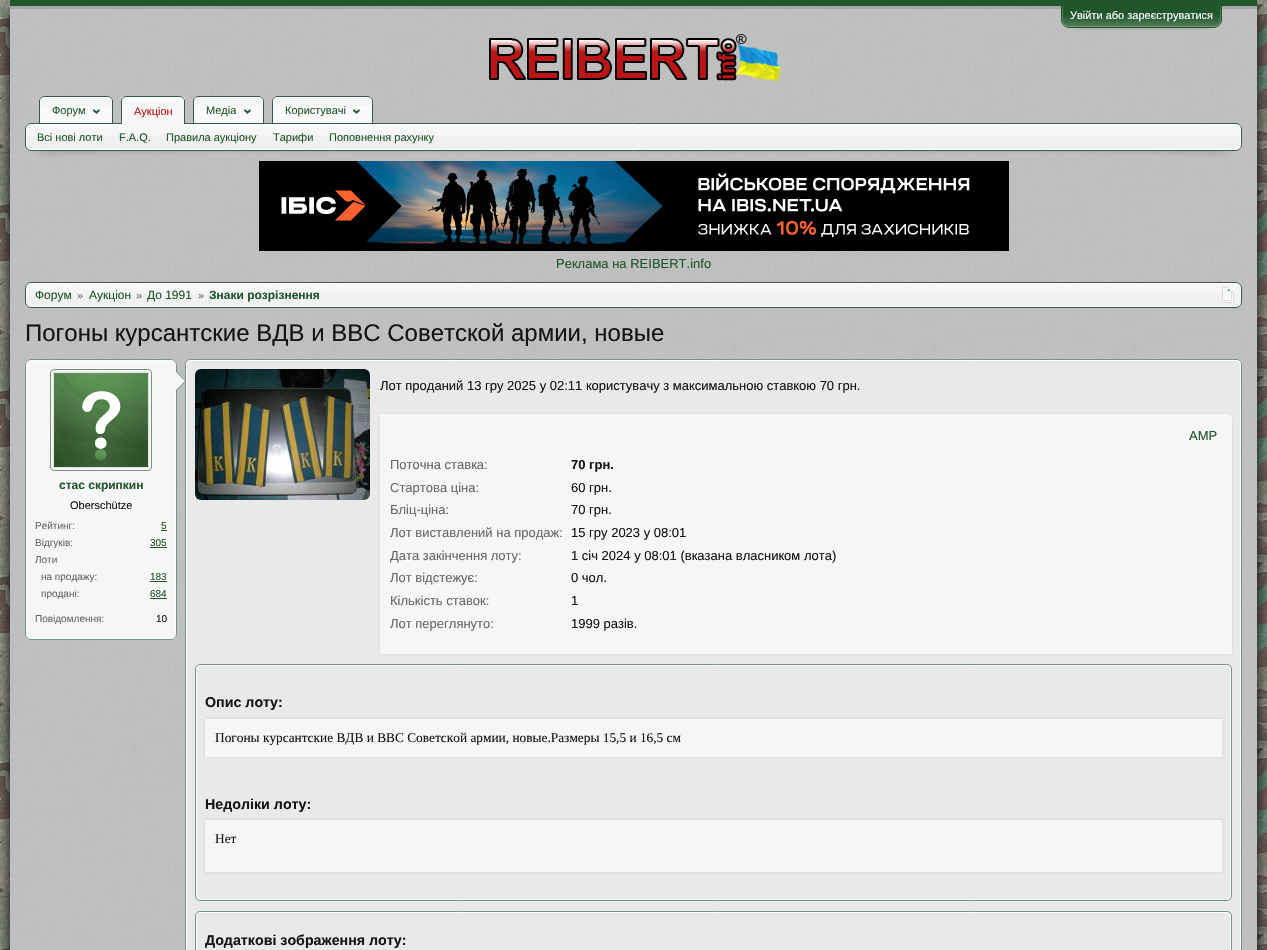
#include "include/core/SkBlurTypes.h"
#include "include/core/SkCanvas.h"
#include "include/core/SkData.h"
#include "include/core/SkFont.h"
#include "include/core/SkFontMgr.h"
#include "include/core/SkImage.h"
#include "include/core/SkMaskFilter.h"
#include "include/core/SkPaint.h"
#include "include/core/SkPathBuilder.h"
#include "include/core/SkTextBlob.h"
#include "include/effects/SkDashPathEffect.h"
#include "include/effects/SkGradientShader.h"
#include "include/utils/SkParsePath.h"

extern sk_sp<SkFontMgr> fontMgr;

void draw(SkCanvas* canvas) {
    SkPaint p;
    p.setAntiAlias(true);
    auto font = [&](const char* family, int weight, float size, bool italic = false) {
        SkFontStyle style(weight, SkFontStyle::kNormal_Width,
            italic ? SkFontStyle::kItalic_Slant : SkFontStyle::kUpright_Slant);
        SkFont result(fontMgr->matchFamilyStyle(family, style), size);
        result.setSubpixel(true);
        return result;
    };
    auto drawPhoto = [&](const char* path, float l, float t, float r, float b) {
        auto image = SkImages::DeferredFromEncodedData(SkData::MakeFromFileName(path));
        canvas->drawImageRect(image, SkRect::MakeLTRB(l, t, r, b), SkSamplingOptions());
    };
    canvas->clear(0xFFFFFFFF);
    drawPhoto("media/1.png", 0, 0, 1267, 950);
    p.setColor(0xFF000000);
    p.setMaskFilter(SkMaskFilter::MakeBlur(kNormal_SkBlurStyle, 7.5f));
    canvas->drawRect(SkRect::MakeLTRB(10, 11, 1257, 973), p);
    p.setMaskFilter(nullptr);
    p.setColor(0xFF21562B);
    canvas->drawRect(SkRect::MakeLTRB(10, 0, 1257, 6), p);
    p.setColor(0xFFC0C0C0);
    canvas->drawRect(SkRect::MakeLTRB(10, 6, 1257, 950), p);
    drawPhoto("media/3.png", 10, 6, 1256, 949);
    p.setColor(0x80000000);
    p.setMaskFilter(SkMaskFilter::MakeBlur(kNormal_SkBlurStyle, 2.5f));
    canvas->drawRoundRect(SkRect::MakeLTRB(1075, 22, 1208, 26), 4, 4, p);
    p.setMaskFilter(nullptr);
    p.setColor(0x21000000);
    canvas->drawRect(SkRect::MakeLTRB(10, 6, 1257, 9), p);
    p.setColor(0xFF21562B);
    canvas->drawPath(SkPathBuilder().moveTo(1062, 6).lineTo(1221, 6).lineTo(1221, 20).cubicTo(1221, 24, 1218, 27, 1214, 27).lineTo(1069, 27).cubicTo(1065, 27, 1062, 24, 1062, 20).close().detach(), p);
    drawPhoto("media/2.png", 1061, 15, 1222, 28);
    canvas->save();
    canvas->clipRect(SkRect::MakeLTRB(1061, 6, 1222, 30));
    p.setStyle(SkPaint::kStroke_Style);
    p.setStrokeWidth(1);
    p.setColor(0x33FFFFFF);
    canvas->drawPath(SkPathBuilder().moveTo(1062.5f, 2.5f).lineTo(1220.5f, 2.5f).lineTo(1220.5f, 20).cubicTo(1220.5f, 23.5f, 1217.5f, 26.5f, 1214, 26.5f).lineTo(1069, 26.5f).cubicTo(1065.5f, 26.5f, 1062.5f, 23.5f, 1062.5f, 20).close().detach(), p);
    p.setStyle(SkPaint::kFill_Style);
    p.setColor(0xFF21562B);
    canvas->drawPath(SkPathBuilder(SkPathFillType::kEvenOdd).moveTo(1061, 2).lineTo(1222, 2).lineTo(1222, 20).cubicTo(1222, 24, 1218, 28, 1214, 28).lineTo(1069, 28).cubicTo(1065, 28, 1061, 24, 1061, 20).close().moveTo(1062, 2).lineTo(1221, 2).lineTo(1221, 20).cubicTo(1221, 24, 1218, 27, 1214, 27).lineTo(1069, 27).cubicTo(1065, 27, 1062, 24, 1062, 20).close().detach(), p);
    canvas->restore();
    auto font1 = font("Liberation Sans", 400, 11);
    p.setColor(0xFFFFFFFF);
    canvas->drawString("Увійти або зареєструватися", 1070, 19, font1, p);
    drawPhoto("media/4.png", 489, 34, 781, 82);
    p.setColor(0xFFFAFAFA);
    canvas->drawPath(SkPathBuilder().moveTo(44, 96).lineTo(108, 96).cubicTo(111, 96, 113, 98, 113, 101).lineTo(113, 125).lineTo(39, 125).lineTo(39, 101).cubicTo(39, 98, 41, 96, 44, 96).close().detach(), p);
    drawPhoto("media/5.png", 39, 97, 113, 106);
    p.setStyle(SkPaint::kStroke_Style);
    canvas->drawPath(SkPathBuilder().moveTo(44, 97.5f).lineTo(108, 97.5f).cubicTo(110, 97.5f, 111.5f, 99, 111.5f, 101).lineTo(111.5f, 123.5f).lineTo(40.5f, 123.5f).lineTo(40.5f, 101).cubicTo(40.5f, 99, 42, 97.5f, 44, 97.5f).close().detach(), p);
    p.setColor(0xFF3F5947);
    canvas->drawPath(SkPathBuilder().moveTo(44, 96.5f).lineTo(108, 96.5f).cubicTo(110.5f, 96.5f, 112.5f, 98.5f, 112.5f, 101).lineTo(112.5f, 124.5f).lineTo(39.5f, 124.5f).lineTo(39.5f, 101).cubicTo(39.5f, 98.5f, 41.5f, 96.5f, 44, 96.5f).close().detach(), p);
    p.setStyle(SkPaint::kFill_Style);
    p.setColor(0xFF21562B);
    canvas->drawString("Форум", 52, 114, font1, p);
    drawPhoto("media/6.png", 93, 109, 100, 114);
    p.setColor(0xFFF7F7F7);
    canvas->drawPath(SkPathBuilder().moveTo(126, 96).lineTo(180, 96).cubicTo(183, 96, 185, 98, 185, 101).lineTo(185, 126).lineTo(121, 126).lineTo(121, 101).cubicTo(121, 98, 123, 96, 126, 96).close().detach(), p);
    p.setColor(0x7AFFFFFF);
    canvas->drawRect(SkRect::MakeLTRB(121, 97, 185, 101), p);
    p.setStyle(SkPaint::kStroke_Style);
    p.setColor(0xFFFAFAFA);
    canvas->drawPath(SkPathBuilder().moveTo(126, 97.5f).lineTo(180, 97.5f).cubicTo(182, 97.5f, 183.5f, 99, 183.5f, 101).lineTo(183.5f, 124.5f).lineTo(122.5f, 124.5f).lineTo(122.5f, 101).cubicTo(122.5f, 99, 124, 97.5f, 126, 97.5f).close().detach(), p);
    p.setColor(0xFF3F5947);
    canvas->drawPath(SkPathBuilder().moveTo(126, 96.5f).lineTo(180, 96.5f).cubicTo(182.5f, 96.5f, 184.5f, 98.5f, 184.5f, 101).lineTo(184.5f, 125.5f).lineTo(121.5f, 125.5f).lineTo(121.5f, 101).cubicTo(121.5f, 98.5f, 123.5f, 96.5f, 126, 96.5f).close().detach(), p);
    p.setStyle(SkPaint::kFill_Style);
    p.setColor(0xFFBB1515);
    canvas->drawString("Аукціон", 134, 115, font1, p);
    p.setColor(0xFFFAFAFA);
    canvas->drawPath(SkPathBuilder().moveTo(198, 96).lineTo(259, 96).cubicTo(262, 96, 264, 98, 264, 101).lineTo(264, 125).lineTo(193, 125).lineTo(193, 101).cubicTo(193, 98, 195, 96, 198, 96).close().detach(), p);
    drawPhoto("media/7.png", 193, 97, 264, 106);
    p.setStyle(SkPaint::kStroke_Style);
    canvas->drawPath(SkPathBuilder().moveTo(198, 97.5f).lineTo(259, 97.5f).cubicTo(261, 97.5f, 262.5f, 99, 262.5f, 101).lineTo(262.5f, 123.5f).lineTo(194.5f, 123.5f).lineTo(194.5f, 101).cubicTo(194.5f, 99, 196, 97.5f, 198, 97.5f).close().detach(), p);
    p.setColor(0xFF3F5947);
    canvas->drawPath(SkPathBuilder().moveTo(198, 96.5f).lineTo(259, 96.5f).cubicTo(261.5f, 96.5f, 263.5f, 98.5f, 263.5f, 101).lineTo(263.5f, 124.5f).lineTo(193.5f, 124.5f).lineTo(193.5f, 101).cubicTo(193.5f, 98.5f, 195.5f, 96.5f, 198, 96.5f).close().detach(), p);
    p.setStyle(SkPaint::kFill_Style);
    p.setColor(0xFFFAFAFA);
    canvas->drawPath(SkPathBuilder().moveTo(277, 96).lineTo(368, 96).cubicTo(371, 96, 373, 98, 373, 101).lineTo(373, 125).lineTo(272, 125).lineTo(272, 101).cubicTo(272, 98, 274, 96, 277, 96).close().detach(), p);
    drawPhoto("media/8.png", 272, 97, 373, 106);
    p.setStyle(SkPaint::kStroke_Style);
    canvas->drawPath(SkPathBuilder().moveTo(277, 97.5f).lineTo(368, 97.5f).cubicTo(370, 97.5f, 371.5f, 99, 371.5f, 101).lineTo(371.5f, 123.5f).lineTo(273.5f, 123.5f).lineTo(273.5f, 101).cubicTo(273.5f, 99, 275, 97.5f, 277, 97.5f).close().detach(), p);
    p.setColor(0xFF3F5947);
    canvas->drawPath(SkPathBuilder().moveTo(277, 96.5f).lineTo(368, 96.5f).cubicTo(370.5f, 96.5f, 372.5f, 98.5f, 372.5f, 101).lineTo(372.5f, 124.5f).lineTo(272.5f, 124.5f).lineTo(272.5f, 101).cubicTo(272.5f, 98.5f, 274.5f, 96.5f, 277, 96.5f).close().detach(), p);
    p.setStyle(SkPaint::kFill_Style);
    p.setColor(0xFFF0F0F0);
    canvas->drawRoundRect(SkRect::MakeLTRB(25, 123, 1242, 151), 6, 6, p);
    drawPhoto("media/10.png", 25, 124, 1242, 136);
    p.setStyle(SkPaint::kStroke_Style);
    p.setColor(0xFFFDFDFD);
    canvas->drawRoundRect(SkRect::MakeLTRB(26.5f, 124.5f, 1240.5f, 149.5f), 4.5f, 4.5f, p);
    p.setColor(0xFF3F5947);
    canvas->drawRoundRect(SkRect::MakeLTRB(25.5f, 123.5f, 1241.5f, 150.5f), 5.5f, 5.5f, p);
    p.setStyle(SkPaint::kFill_Style);
    p.setColor(0xFFF7F7F7);
    canvas->drawRect(SkRect::MakeLTRB(122, 123, 184, 125), p);
    p.setColor(0xFF21562B);
    canvas->drawString("Медіа", 206, 114, font1, p);
    drawPhoto("media/6.png", 244, 109, 251, 114);
    canvas->drawString("Користувачі", 285, 114, font1, p);
    drawPhoto("media/6.png", 353, 109, 360, 114);
    drawPhoto("media/9.png", 33, 151, 1234, 158);
    {
        const struct { const char* s; float x, y; } items[] = {
            {"Всі нові лоти", 37, 141},
            {"F.A.Q.", 119, 141},
            {"Правила аукціону", 166, 141},
            {"Тарифи", 273, 141},
            {"Поповнення рахунку", 329, 141},
        };
        for (auto [s, x, y] : items) {
            canvas->drawString(s, x, y, font1, p);
        }
    }
    drawPhoto("media/11.png", 259, 161, 1009, 251);
    auto font2 = font("Liberation Sans", 400, 13);
    canvas->drawString("Реклама на REIBERT.info", 556, 268, font2, p);
    p.setColor(0xFFF0F0F0);
    canvas->drawRoundRect(SkRect::MakeLTRB(25, 282, 1242, 308), 6, 6, p);
    drawPhoto("media/12.png", 25, 283, 1242, 295);
    p.setStyle(SkPaint::kStroke_Style);
    p.setColor(0xFFFDFDFD);
    canvas->drawRoundRect(SkRect::MakeLTRB(26.5f, 283.5f, 1240.5f, 306.5f), 4.5f, 4.5f, p);
    p.setColor(0xFF3F5947);
    canvas->drawRoundRect(SkRect::MakeLTRB(25.5f, 282.5f, 1241.5f, 307.5f), 5.5f, 5.5f, p);
    auto font3 = font("Liberation Sans", 400, 12);
    p.setStyle(SkPaint::kFill_Style);
    p.setColor(0xFF21562B);
    canvas->drawString("Форум", 35, 299, font3, p);
    p.setColor(0xFF666666);
    canvas->drawString("»", 77, 299, font1, p);
    p.setColor(0xFF21562B);
    canvas->drawString("Аукціон", 89, 299, font3, p);
    p.setColor(0xFF666666);
    canvas->drawString("»", 136, 299, font1, p);
    p.setColor(0xFF21562B);
    canvas->drawString("До 1991", 147, 299, font3, p);
    p.setColor(0xFF666666);
    canvas->drawString("»", 198, 299, font1, p);
    auto font4 = font("Liberation Sans", 700, 12);
    p.setColor(0xFF21562B);
    canvas->drawString("Знаки розрізнення", 209, 299, font4, p);
    drawPhoto("media/13.png", 1222, 287, 1234, 303);
    auto font5 = font("Liberation Sans", 400, 24);
    p.setColor(0xFF141414);
    canvas->drawString("Погоны курсантские ВДВ и ВВС Советской армии, новые", 25, 341, font5, p);
    p.setColor(0xFFF6F6F6);
    canvas->drawRoundRect(SkRect::MakeLTRB(25, 359, 177, 640), 6, 6, p);
    p.setStyle(SkPaint::kStroke_Style);
    p.setColor(0xFFFCFCFC);
    canvas->drawRoundRect(SkRect::MakeLTRB(26.5f, 360.5f, 175.5f, 638.5f), 4.5f, 4.5f, p);
    p.setColor(0xFF76947F);
    canvas->drawRoundRect(SkRect::MakeLTRB(25.5f, 359.5f, 176.5f, 639.5f), 5.5f, 5.5f, p);
    canvas->drawRoundRect(SkRect::MakeLTRB(50.5f, 369.5f, 151.5f, 470.5f), 3.5f, 3.5f, p);
    drawPhoto("media/14.png", 53, 372, 149, 468);
    p.setStyle(SkPaint::kFill_Style);
    canvas->drawPath(SkPathBuilder().moveTo(176, 391).lineTo(176, 371).lineTo(186, 381).close().detach(), p);
    p.setColor(0xFFF6F6F6);
    canvas->drawPath(SkPathBuilder().moveTo(175, 391).lineTo(175, 371).lineTo(185, 381).close().detach(), p);
    p.setColor(0xFF21562B);
    canvas->drawString("стас скрипкин", 59, 489, font4, p);
    p.setColor(0xFF141414);
    canvas->drawString("Oberschütze", 70, 509, font1, p);
    auto font6 = font("Liberation Sans", 400, 10);
    p.setColor(0xFF666666);
    canvas->drawString("Рейтинг:", 35, 529, font6, p);
    p.setColor(0xFF21562B);
    canvas->drawString("5", 161, 529, font6, p);
    canvas->drawRect(SkRect::MakeLTRB(161, 530, 167, 531), p);
    p.setColor(0xFF666666);
    canvas->drawString("Відгуків:", 35, 546, font6, p);
    p.setColor(0xFF21562B);
    canvas->drawString("305", 150, 546, font6, p);
    canvas->drawRect(SkRect::MakeLTRB(150, 547, 167, 548), p);
    p.setColor(0xFF666666);
    canvas->drawString("Лоти", 35, 563, font6, p);
    canvas->drawString("на продажу:", 41, 580, font6, p);
    p.setColor(0xFF21562B);
    canvas->drawString("183", 150, 580, font6, p);
    canvas->drawRect(SkRect::MakeLTRB(150, 581, 167, 582), p);
    p.setColor(0xFF666666);
    canvas->drawString("продані:", 41, 597, font6, p);
    p.setColor(0xFF21562B);
    canvas->drawString("684", 150, 597, font6, p);
    canvas->drawRect(SkRect::MakeLTRB(150, 598, 167, 599), p);
    p.setColor(0xFF666666);
    canvas->drawString("Повідомлення:", 35, 622, font6, p);
    p.setColor(0xFF141414);
    canvas->drawString("10", 156, 622, font6, p);
    p.setColor(0xFFE9E9E9);
    canvas->drawRoundRect(SkRect::MakeLTRB(185, 359, 1242, 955), 5, 5, p);
    p.setStyle(SkPaint::kStroke_Style);
    p.setColor(0xFFFFFFFF);
    canvas->drawRoundRect(SkRect::MakeLTRB(186.5f, 360.5f, 1240.5f, 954.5f), 3.5f, 3.5f, p);
    p.setColor(0xFF76947F);
    canvas->drawRoundRect(SkRect::MakeLTRB(185.5f, 359.5f, 1241.5f, 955.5f), 4.5f, 4.5f, p);
    drawPhoto("media/15.png", 195, 369, 370, 500);
    p.setStyle(SkPaint::kFill_Style);
    p.setColor(0xFF141414);
    canvas->drawString("Лот проданий 13 гру 2025 у 02:11 користувачу з максимальною ставкою 70 грн.", 380, 390, font2, p);
    p.setColor(0xFFCCCCCC);
    p.setMaskFilter(SkMaskFilter::MakeBlur(kNormal_SkBlurStyle, 1.5f));
    canvas->drawRoundRect(SkRect::MakeLTRB(380, 414, 1232, 654), 5, 5, p);
    p.setMaskFilter(nullptr);
    p.setColor(0xFFF6F6F6);
    canvas->drawPath(SkPathBuilder().moveTo(380, 414).lineTo(1227, 414).cubicTo(1230, 414, 1232, 416, 1232, 419).lineTo(1232, 654).lineTo(380, 654).close().detach(), p);
    p.setColor(0xFF21562B);
    canvas->drawString("AMP", 1189, 440, font2, p);
    p.setColor(0xFF666666);
    canvas->drawString("Поточна ставка:", 390, 469, font2, p);
    auto font7 = font("Liberation Sans", 700, 13);
    p.setColor(0xFF141414);
    canvas->drawString("70 грн.", 571, 469, font7, p);
    p.setColor(0xFF666666);
    canvas->drawString("Стартова ціна:", 390, 492, font2, p);
    p.setColor(0xFF141414);
    canvas->drawString("60 грн.", 571, 492, font2, p);
    p.setColor(0xFF666666);
    canvas->drawString("Бліц-ціна:", 390, 514, font2, p);
    p.setColor(0xFF141414);
    canvas->drawString("70 грн.", 571, 514, font2, p);
    p.setColor(0xFF666666);
    canvas->drawString("Лот виставлений на продаж:", 390, 537, font2, p);
    p.setColor(0xFF141414);
    canvas->drawString("15 гру 2023 у 08:01", 571, 537, font2, p);
    p.setColor(0xFF666666);
    canvas->drawString("Дата закінчення лоту:", 390, 560, font2, p);
    p.setColor(0xFF141414);
    canvas->drawString("1 січ 2024 у 08:01 (вказана власником лота)", 571, 560, font2, p);
    p.setColor(0xFF666666);
    canvas->drawString("Лот відстежує:", 390, 582, font2, p);
    p.setColor(0xFF141414);
    canvas->drawString("0 чол.", 571, 582, font2, p);
    p.setColor(0xFF666666);
    canvas->drawString("Кількість ставок:", 390, 605, font2, p);
    p.setColor(0xFF141414);
    canvas->drawString("1", 571, 605, font2, p);
    p.setColor(0xFF666666);
    canvas->drawString("Лот переглянуто:", 390, 628, font2, p);
    p.setColor(0xFF141414);
    canvas->drawString("1999 разів.", 571, 628, font2, p);
    p.setStyle(SkPaint::kStroke_Style);
    p.setColor(0xFFFFFFFF);
    canvas->drawRoundRect(SkRect::MakeLTRB(196.5f, 665.5f, 1230.5f, 899.5f), 3.5f, 3.5f, p);
    p.setColor(0xFF76947F);
    canvas->drawRoundRect(SkRect::MakeLTRB(195.5f, 664.5f, 1231.5f, 900.5f), 4.5f, 4.5f, p);
    auto font8 = font("Liberation Sans", 700, 14.25f);
    p.setStyle(SkPaint::kFill_Style);
    p.setColor(0xFF141414);
    canvas->drawString("Опис лоту:", 205, 707, font8, p);
    p.setColor(0xFFCCCCCC);
    p.setMaskFilter(SkMaskFilter::MakeBlur(kNormal_SkBlurStyle, 1.5f));
    canvas->drawRect(SkRect::MakeLTRB(205, 719, 1222, 757), p);
    p.setMaskFilter(nullptr);
    p.setColor(0xFFF6F6F6);
    canvas->drawRect(SkRect::MakeLTRB(205, 719, 1222, 757), p);
    auto font9 = font("Liberation Serif", 400, 13.35f);
    p.setColor(0xFF141414);
    canvas->drawString("Погоны курсантские ВДВ и ВВС Советской армии, новые.Размеры 15,5 и 16,5 см", 215, 742, font9, p);
    canvas->drawString("Недоліки лоту:", 205, 809, font8, p);
    p.setColor(0xFFCCCCCC);
    p.setMaskFilter(SkMaskFilter::MakeBlur(kNormal_SkBlurStyle, 1.5f));
    canvas->drawRect(SkRect::MakeLTRB(205, 820, 1222, 872), p);
    p.setMaskFilter(nullptr);
    p.setColor(0xFFF6F6F6);
    canvas->drawRect(SkRect::MakeLTRB(205, 820, 1222, 872), p);
    p.setColor(0xFF141414);
    canvas->drawString("Нет", 215, 843, font9, p);
    p.setStyle(SkPaint::kStroke_Style);
    p.setColor(0xFFFFFFFF);
    canvas->drawRoundRect(SkRect::MakeLTRB(196.5f, 912.5f, 1230.5f, 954.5f), 3.5f, 3.5f, p);
    p.setColor(0xFF76947F);
    canvas->drawRoundRect(SkRect::MakeLTRB(195.5f, 911.5f, 1231.5f, 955.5f), 4.5f, 4.5f, p);
    p.setStyle(SkPaint::kFill_Style);
    p.setColor(0xFF141414);
    canvas->drawString("Додаткові зображення лоту:", 205, 945, font8, p);
}
